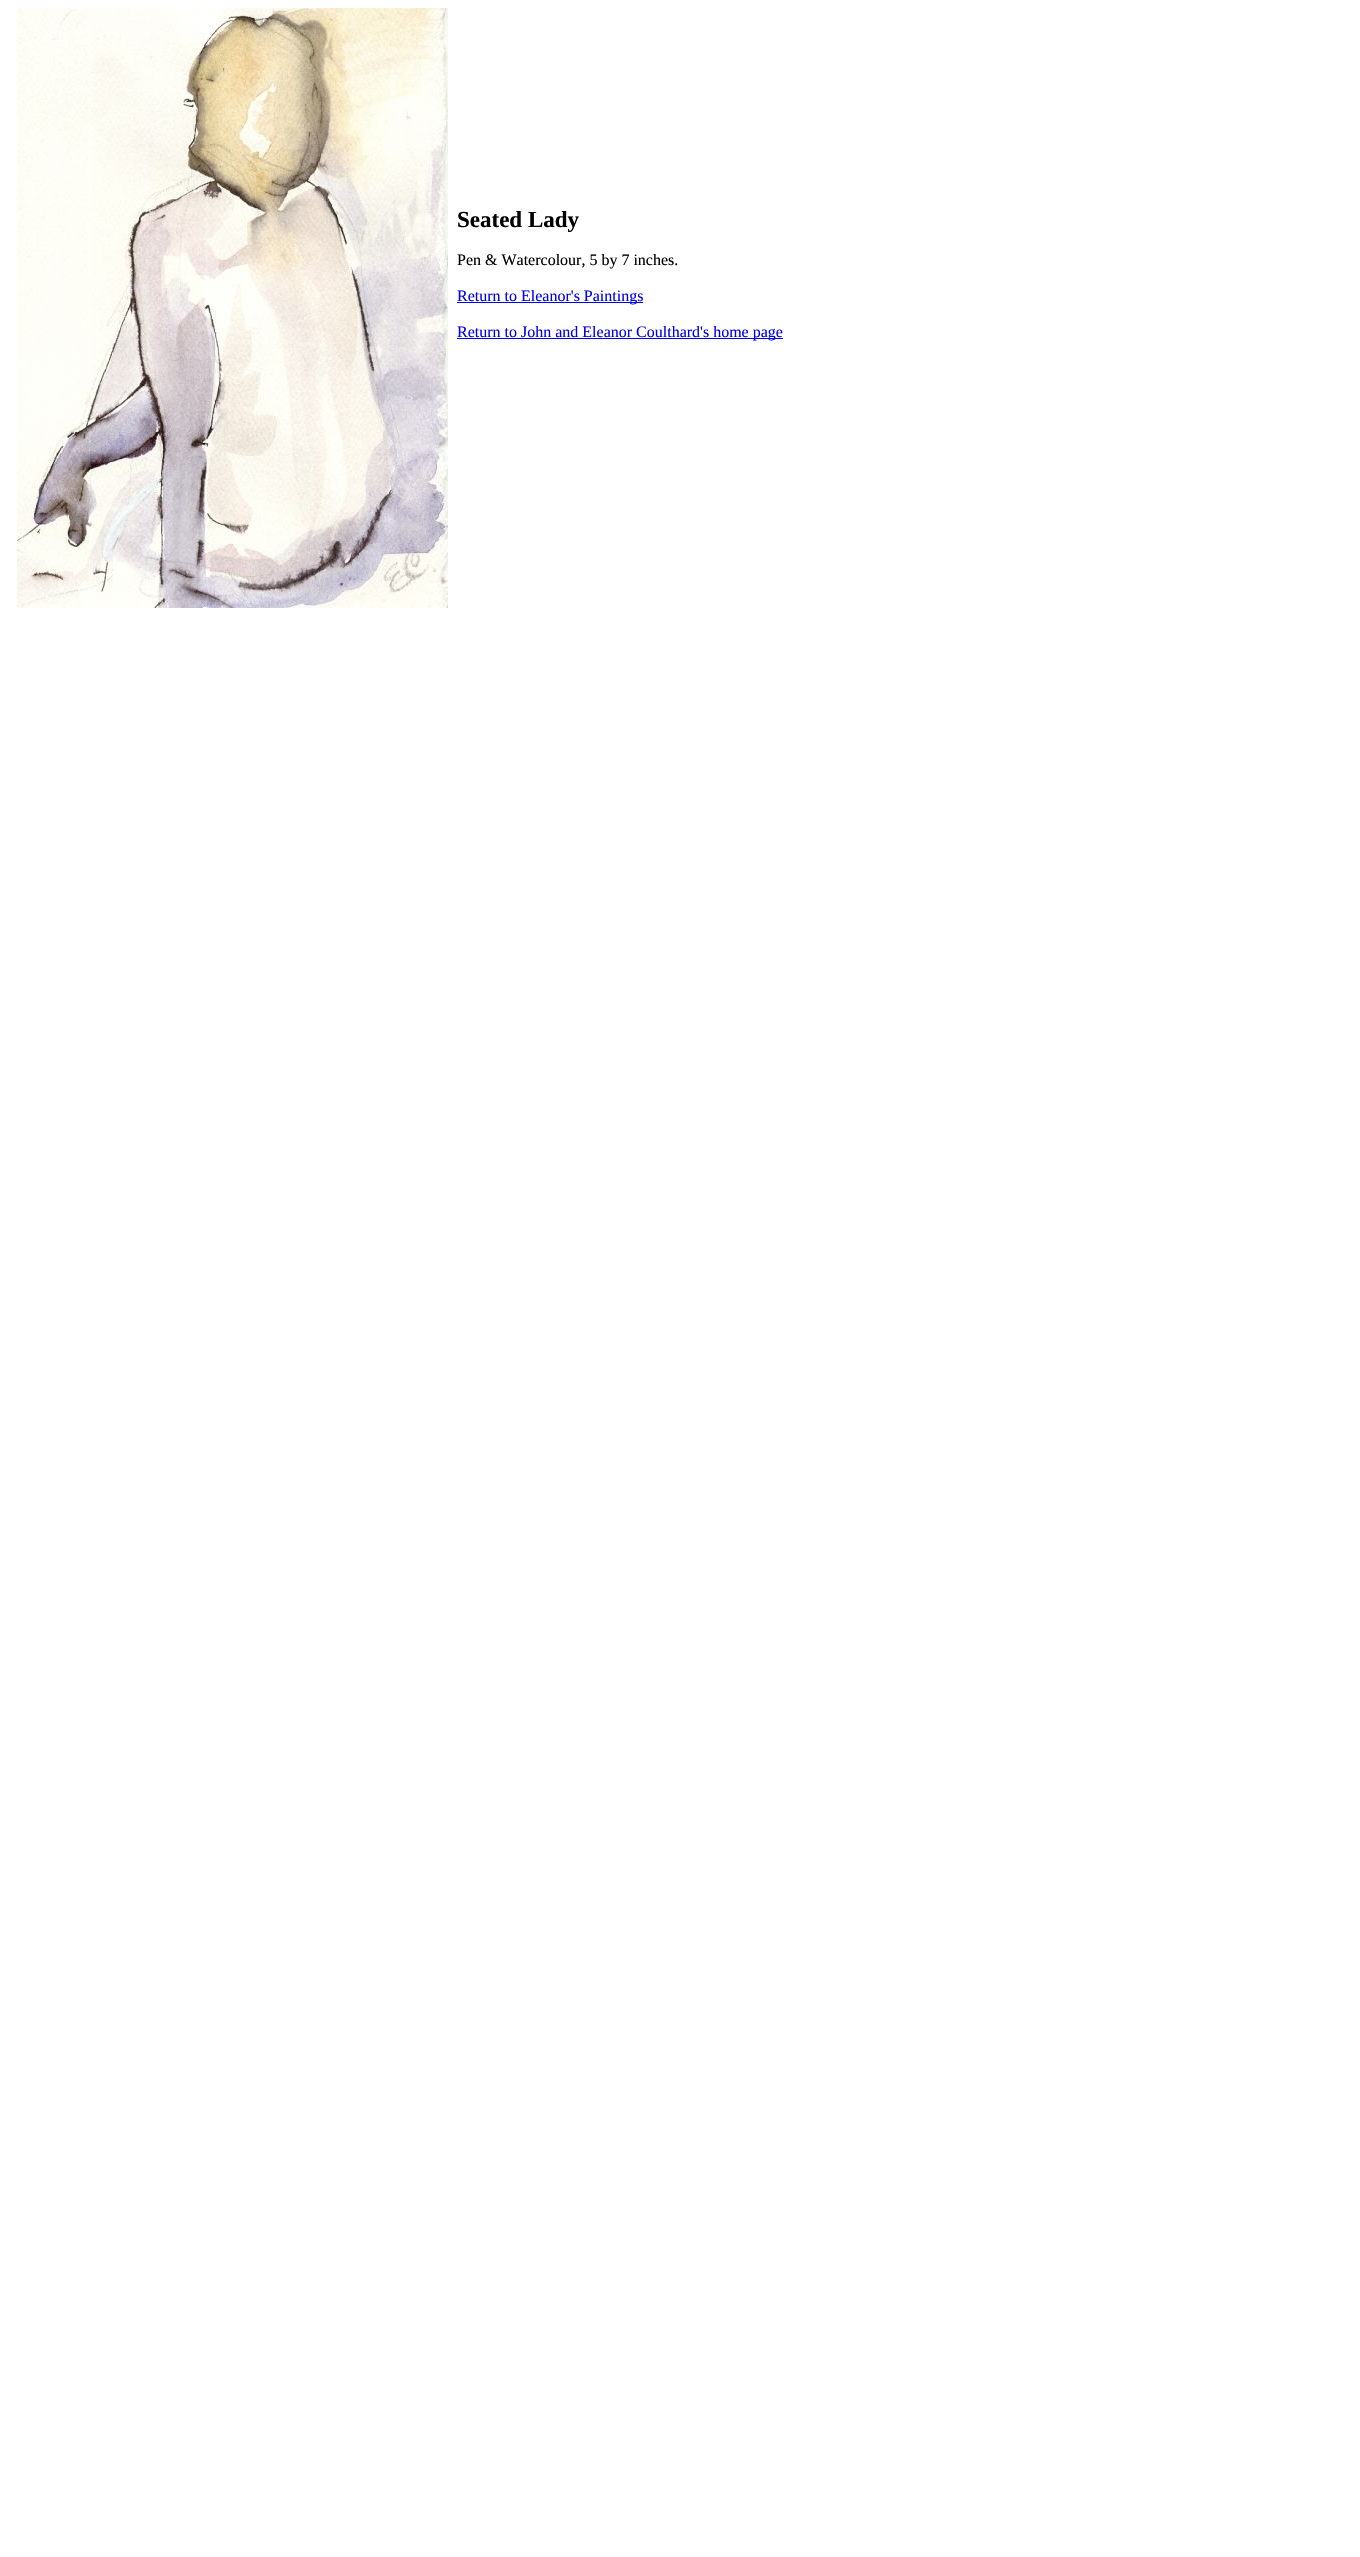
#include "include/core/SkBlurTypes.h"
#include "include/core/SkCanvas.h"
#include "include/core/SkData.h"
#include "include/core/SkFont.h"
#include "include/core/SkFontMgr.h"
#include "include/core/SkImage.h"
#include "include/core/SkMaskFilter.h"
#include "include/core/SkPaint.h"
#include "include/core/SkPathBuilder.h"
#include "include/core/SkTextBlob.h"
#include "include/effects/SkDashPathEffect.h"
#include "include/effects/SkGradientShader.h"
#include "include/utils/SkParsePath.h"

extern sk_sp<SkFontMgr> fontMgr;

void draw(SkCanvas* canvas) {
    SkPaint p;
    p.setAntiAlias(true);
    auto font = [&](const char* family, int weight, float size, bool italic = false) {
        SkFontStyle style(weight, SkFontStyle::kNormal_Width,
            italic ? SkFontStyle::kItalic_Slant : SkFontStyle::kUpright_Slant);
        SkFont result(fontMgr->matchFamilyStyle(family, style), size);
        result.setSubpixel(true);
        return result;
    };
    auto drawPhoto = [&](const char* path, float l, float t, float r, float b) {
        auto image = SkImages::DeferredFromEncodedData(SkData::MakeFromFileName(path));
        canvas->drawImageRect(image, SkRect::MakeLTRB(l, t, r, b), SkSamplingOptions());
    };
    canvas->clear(0xFFFFFFFF);
    drawPhoto("media/1.png", 17, 8, 448, 608);
    auto font1 = font("Liberation Serif", 700, 23);
    p.setColor(0xFF000000);
    canvas->drawString("Seated Lady", 457, 227, font1, p);
    auto font2 = font("Liberation Serif", 400, 16);
    canvas->drawString("Pen & Watercolour, 5 by 7 inches.", 457, 265, font2, p);
    p.setColor(0xFF0000EE);
    canvas->drawRect(SkRect::MakeLTRB(457, 302, 643, 303), p);
    canvas->drawString("Return to Eleanor's Paintings", 457, 301, font2, p);
    canvas->drawRect(SkRect::MakeLTRB(457, 338, 783, 339), p);
    canvas->drawString("Return to John and Eleanor Coulthard's home page", 457, 337, font2, p);
}
